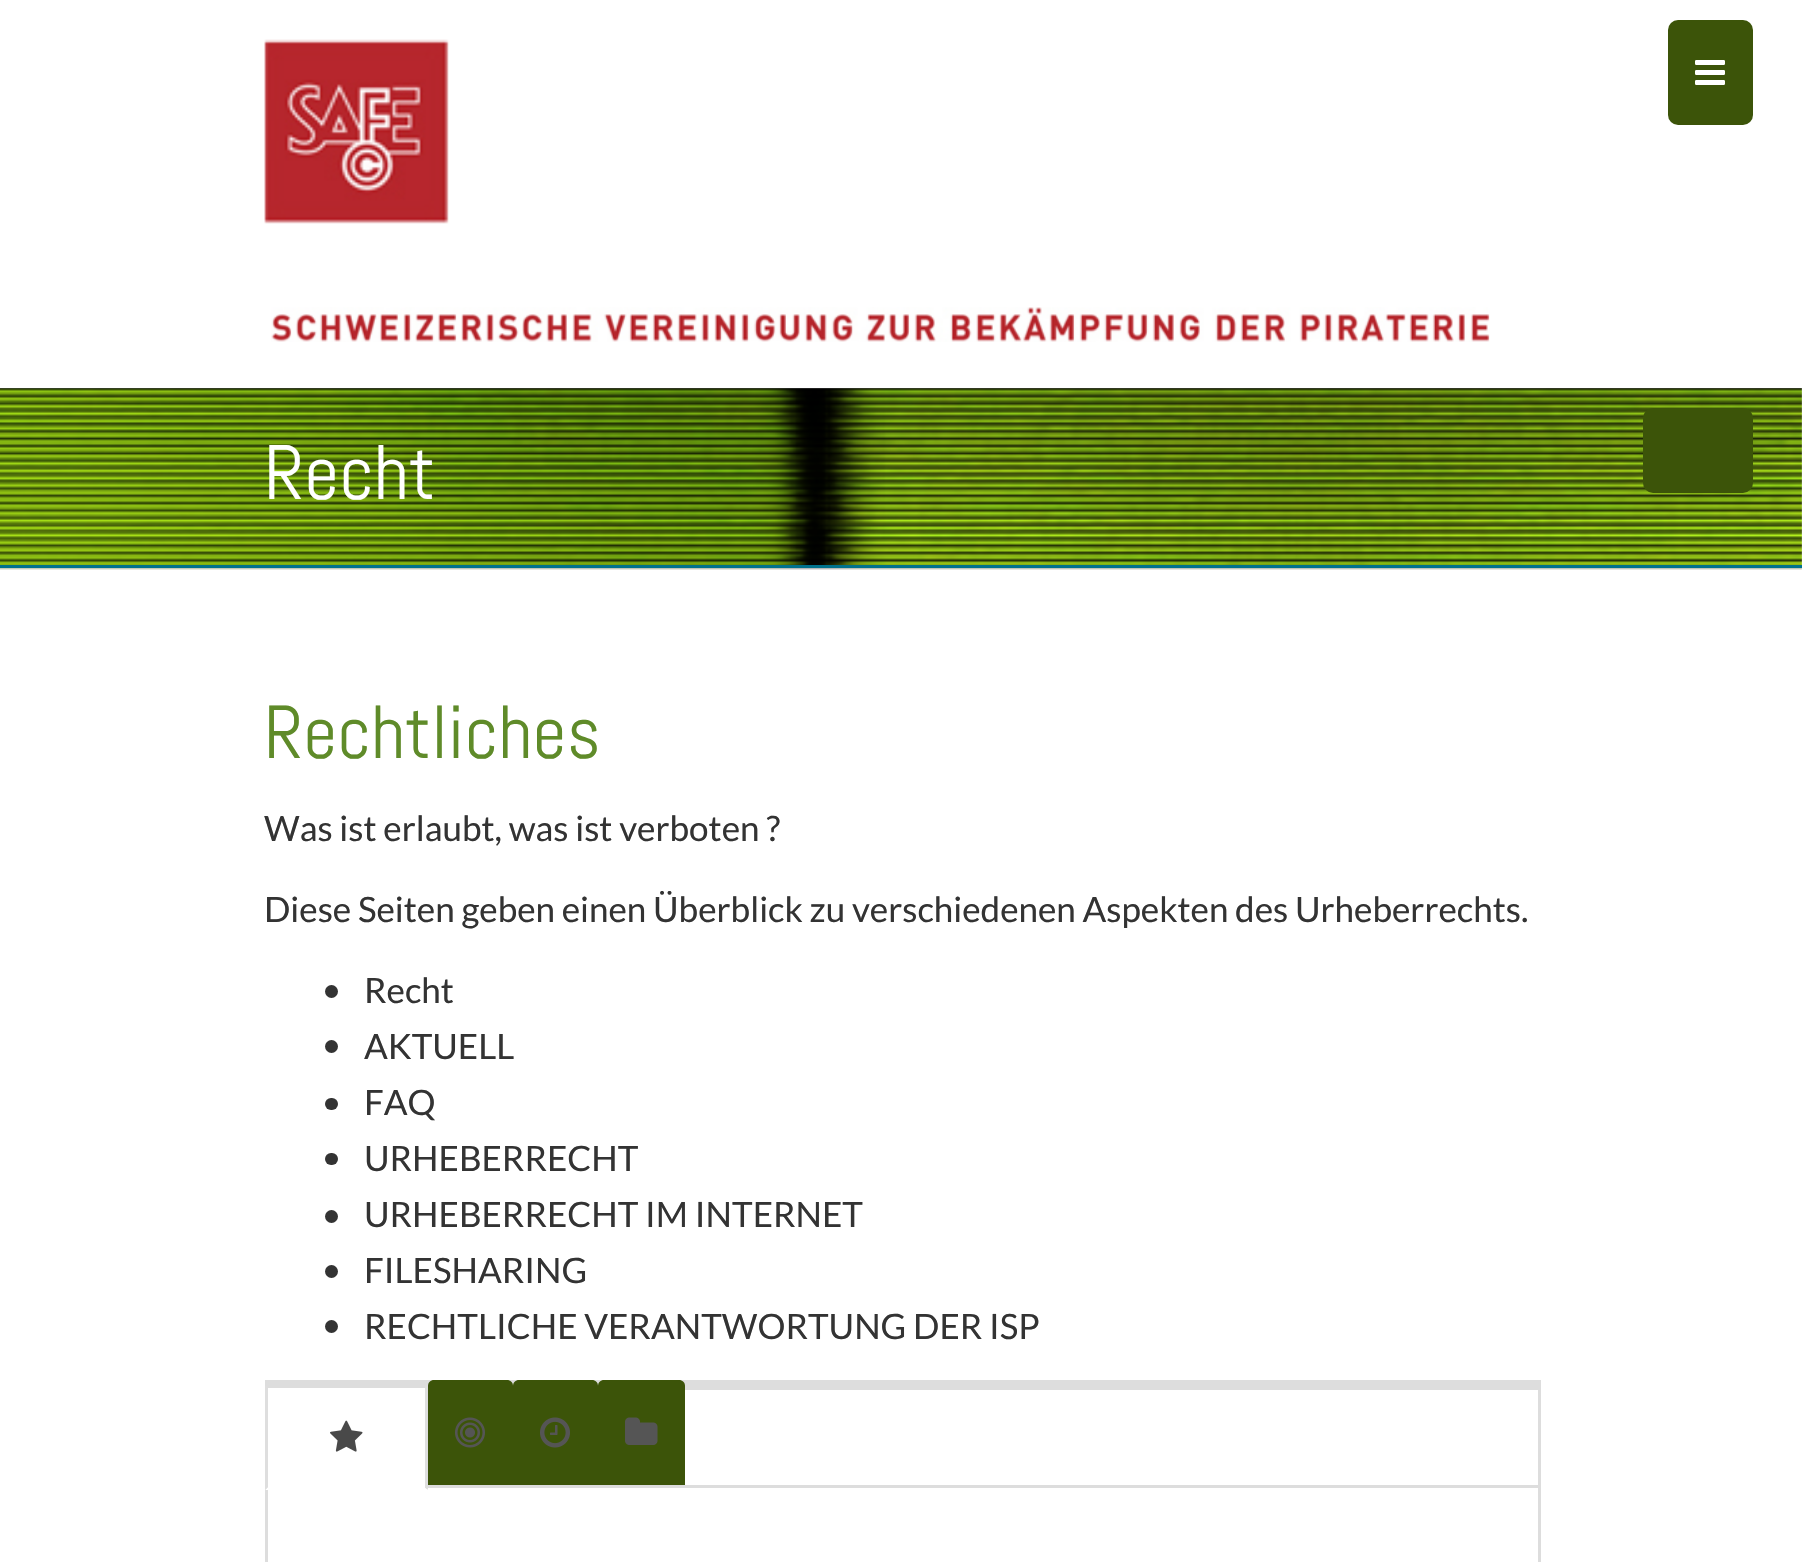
#include "include/core/SkBlurTypes.h"
#include "include/core/SkCanvas.h"
#include "include/core/SkData.h"
#include "include/core/SkFont.h"
#include "include/core/SkFontMgr.h"
#include "include/core/SkImage.h"
#include "include/core/SkMaskFilter.h"
#include "include/core/SkPaint.h"
#include "include/core/SkPathBuilder.h"
#include "include/core/SkTextBlob.h"
#include "include/effects/SkDashPathEffect.h"
#include "include/effects/SkGradientShader.h"
#include "include/utils/SkParsePath.h"

extern sk_sp<SkFontMgr> fontMgr;

void draw(SkCanvas* canvas) {
    SkPaint p;
    p.setAntiAlias(true);
    auto font = [&](const char* family, int weight, float size, bool italic = false) {
        SkFontStyle style(weight, SkFontStyle::kNormal_Width,
            italic ? SkFontStyle::kItalic_Slant : SkFontStyle::kUpright_Slant);
        SkFont result(fontMgr->matchFamilyStyle(family, style), size);
        result.setSubpixel(true);
        return result;
    };
    auto drawPhoto = [&](const char* path, float l, float t, float r, float b) {
        auto image = SkImages::DeferredFromEncodedData(SkData::MakeFromFileName(path));
        canvas->drawImageRect(image, SkRect::MakeLTRB(l, t, r, b), SkSamplingOptions());
    };
    canvas->clear(0xFFFFFFFF);
    drawPhoto("media/1.png", 264, 39, 450, 224);
    drawPhoto("media/2.png", 271, 307, 1490, 342);
    p.setColor(0xFF3C5409);
    canvas->drawRoundRect(SkRect::MakeLTRB(1668, 20, 1753, 125), 10, 10, p);
    drawPhoto("media/3.png", 1695, 60, 1725, 85);
    drawPhoto("media/4.png", 0, 388, 1802, 570);
    canvas->drawRoundRect(SkRect::MakeLTRB(1643, 408, 1753, 493), 10, 10, p);
    p.setColor(0xFF00718C);
    canvas->drawRect(SkRect::MakeLTRB(0, 565, 1802, 568), p);
    auto font1 = font("Abel", 400, 77);
    p.setColor(0xFFFFFFFF);
    canvas->drawString("Recht", 264, 499, font1, p);
    auto font2 = font("Abel", 400, 75);
    p.setColor(0xFF5F8B29);
    canvas->drawString("Rechtliches", 264, 758, font2, p);
    auto font3 = font("Lato", 400, 35);
    p.setColor(0xFF333333);
    canvas->drawString("Was ist erlaubt, was ist verboten ?", 264, 841, font3, p);
    canvas->drawString("Diese Seiten geben einen Überblick zu verschiedenen Aspekten des Urheberrechts.", 264, 922, font3, p);
    canvas->drawCircle(331.5f, 991.5f, 6.5f, p);
    canvas->drawString("Recht", 364, 1003, font3, p);
    canvas->drawCircle(331.5f, 1046.5f, 6.5f, p);
    canvas->drawString("AKTUELL", 364, 1059, font3, p);
    canvas->drawRoundRect(SkRect::MakeLTRB(325, 1098, 338, 1110), 6, 6, p);
    canvas->drawString("FAQ", 364, 1115, font3, p);
    canvas->drawRoundRect(SkRect::MakeLTRB(325, 1153, 338, 1165), 6, 6, p);
    canvas->drawString("URHEBERRECHT", 364, 1171, font3, p);
    canvas->drawCircle(331.5f, 1216.5f, 6.5f, p);
    canvas->drawString("URHEBERRECHT IM INTERNET", 364, 1227, font3, p);
    canvas->drawCircle(331.5f, 1271.5f, 6.5f, p);
    canvas->drawString("FILESHARING", 364, 1283, font3, p);
    canvas->drawCircle(331.5f, 1326.5f, 6.5f, p);
    canvas->drawString("RECHTLICHE VERANTWORTUNG DER ISP", 364, 1339, font3, p);
    {
        const struct { float l, t, r, b; SkColor color; } items[] = {
            {265, 1380, 1538, 1390, 0xFFDDDDDD},
            {1538, 1380, 1541, 1562, 0xFFDDDDDD},
            {265, 1485, 1540, 1488, 0xFFDDDDDD},
        };
        for (auto [l, t, r, b, color] : items) {
            p.setColor(color);
            canvas->drawRect(SkRect::MakeLTRB(l, t, r, b), p);
        }
    }
    p.setColor(0xFFFFFFFF);
    canvas->drawPath(SkPathBuilder().moveTo(271, 1388).lineTo(425, 1388).lineTo(425, 1488).lineTo(268, 1488).lineTo(268, 1388).close().detach(), p);
    p.setColor(0xFFDEDEDE);
    canvas->drawPath(SkPathBuilder().moveTo(428, 1384).lineTo(428, 1490).lineTo(425, 1488).lineTo(425, 1388).lineTo(427, 1383).close().detach(), p);
    p.setColor(0xFFDDDDDD);
    canvas->drawRect(SkRect::MakeLTRB(265, 1488, 268, 1562), p);
    p.setColor(0xFFFFFFFF);
    canvas->drawPath(SkPathBuilder().moveTo(428, 1490).lineTo(425, 1488).lineTo(268, 1488).lineTo(268, 1487).lineTo(265, 1490).close().detach(), p);
    p.setColor(0xFFDEDEDE);
    canvas->drawPath(SkPathBuilder().moveTo(265, 1490).lineTo(268, 1487).lineTo(268, 1389).lineTo(266, 1383).lineTo(265, 1386).close().detach(), p);
    drawPhoto("media/5.png", 330, 1420, 363, 1452);
    p.setColor(0xFF3C5409);
    canvas->drawPath(SkPathBuilder().moveTo(434, 1380).lineTo(507, 1380).cubicTo(510.5f, 1380, 513, 1382.5f, 513, 1386).lineTo(513, 1485).lineTo(428, 1485).lineTo(428, 1386).cubicTo(428, 1382.5f, 430.5f, 1380, 434, 1380).close().detach(), p);
    drawPhoto("media/6.png", 455, 1417, 485, 1448);
    canvas->drawPath(SkPathBuilder().moveTo(519, 1380).lineTo(592, 1380).cubicTo(595.5f, 1380, 598, 1382.5f, 598, 1386).lineTo(598, 1485).lineTo(513, 1485).lineTo(513, 1386).cubicTo(513, 1382.5f, 515.5f, 1380, 519, 1380).close().detach(), p);
    drawPhoto("media/7.png", 540, 1417, 570, 1448);
    canvas->drawPath(SkPathBuilder().moveTo(604, 1380).lineTo(679, 1380).cubicTo(682.5f, 1380, 685, 1382.5f, 685, 1386).lineTo(685, 1485).lineTo(598, 1485).lineTo(598, 1386).cubicTo(598, 1382.5f, 600.5f, 1380, 604, 1380).close().detach(), p);
    drawPhoto("media/8.png", 625, 1417, 658, 1445);
}
